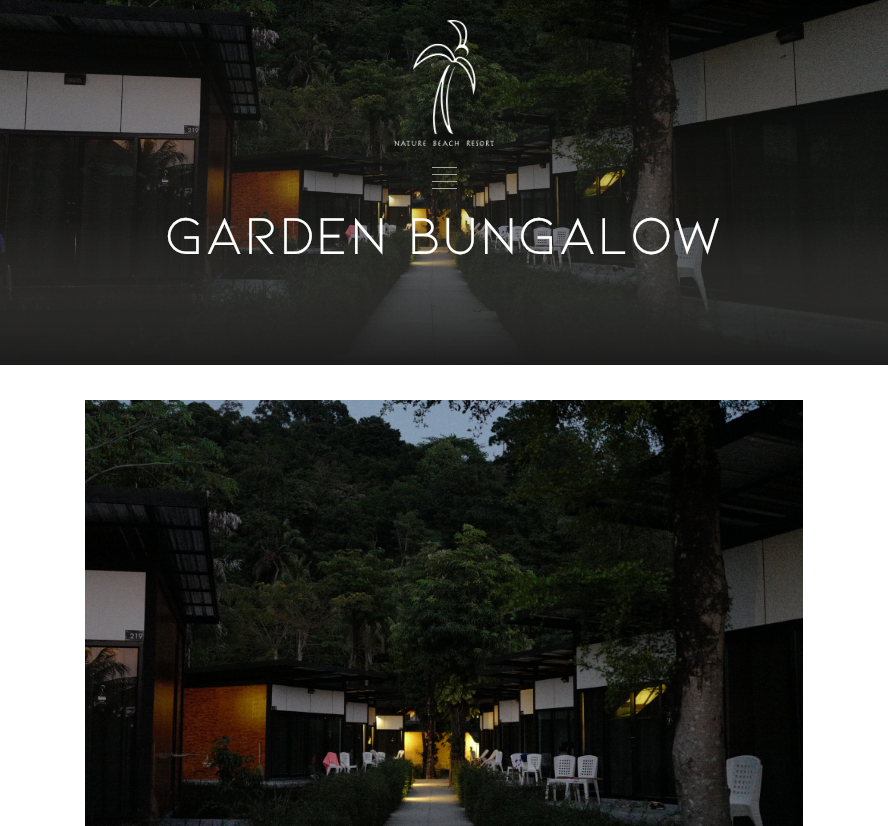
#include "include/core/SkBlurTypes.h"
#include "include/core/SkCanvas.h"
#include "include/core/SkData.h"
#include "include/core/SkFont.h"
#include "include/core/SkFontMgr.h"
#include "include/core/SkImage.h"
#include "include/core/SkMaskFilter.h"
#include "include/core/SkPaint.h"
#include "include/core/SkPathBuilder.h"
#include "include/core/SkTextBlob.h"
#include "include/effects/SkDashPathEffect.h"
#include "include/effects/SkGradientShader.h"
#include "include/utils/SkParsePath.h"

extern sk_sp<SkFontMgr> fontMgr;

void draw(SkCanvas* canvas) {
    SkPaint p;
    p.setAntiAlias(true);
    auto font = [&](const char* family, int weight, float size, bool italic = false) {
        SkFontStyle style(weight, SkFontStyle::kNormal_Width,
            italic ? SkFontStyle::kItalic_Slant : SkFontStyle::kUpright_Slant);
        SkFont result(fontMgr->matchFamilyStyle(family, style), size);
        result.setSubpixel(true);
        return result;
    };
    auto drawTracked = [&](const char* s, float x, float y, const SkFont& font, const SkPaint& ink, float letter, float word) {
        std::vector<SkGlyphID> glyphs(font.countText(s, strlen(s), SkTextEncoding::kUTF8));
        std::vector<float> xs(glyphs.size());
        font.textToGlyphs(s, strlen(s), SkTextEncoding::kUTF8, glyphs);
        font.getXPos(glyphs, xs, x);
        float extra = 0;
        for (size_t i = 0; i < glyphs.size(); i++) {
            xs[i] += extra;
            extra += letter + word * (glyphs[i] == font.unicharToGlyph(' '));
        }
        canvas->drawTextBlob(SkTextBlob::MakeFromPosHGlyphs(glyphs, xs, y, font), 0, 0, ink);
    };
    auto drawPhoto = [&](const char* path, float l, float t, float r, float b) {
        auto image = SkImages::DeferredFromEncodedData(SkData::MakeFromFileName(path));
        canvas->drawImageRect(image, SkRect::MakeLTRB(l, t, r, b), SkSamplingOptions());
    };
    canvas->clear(0xFFFFFFFF);
    drawPhoto("media/2.png", 0, 0, 888, 365);
    drawPhoto("media/1.png", 394, 20, 494, 146);
    {
        const struct { float l, t, r, b; SkColor color; } items[] = {
            {432, 167, 457, 168, 0xFFA3A3A3},
            {432, 174, 457, 175, 0xFFA3A3A3},
            {432, 181, 457, 182, 0xFFA3A3A3},
            {432, 188, 457, 189, 0xFFA3A3A3},
        };
        for (auto [l, t, r, b, color] : items) {
            p.setColor(color);
            canvas->drawRect(SkRect::MakeLTRB(l, t, r, b), p);
        }
    }
    auto font1 = font("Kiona", 400, 55);
    p.setColor(0xFFFFFFFF);
    drawTracked("Garden Bungalow", 165, 254, font1, p, 1, 0);
    drawPhoto("media/3.png", 85, 400, 803, 826);
}
